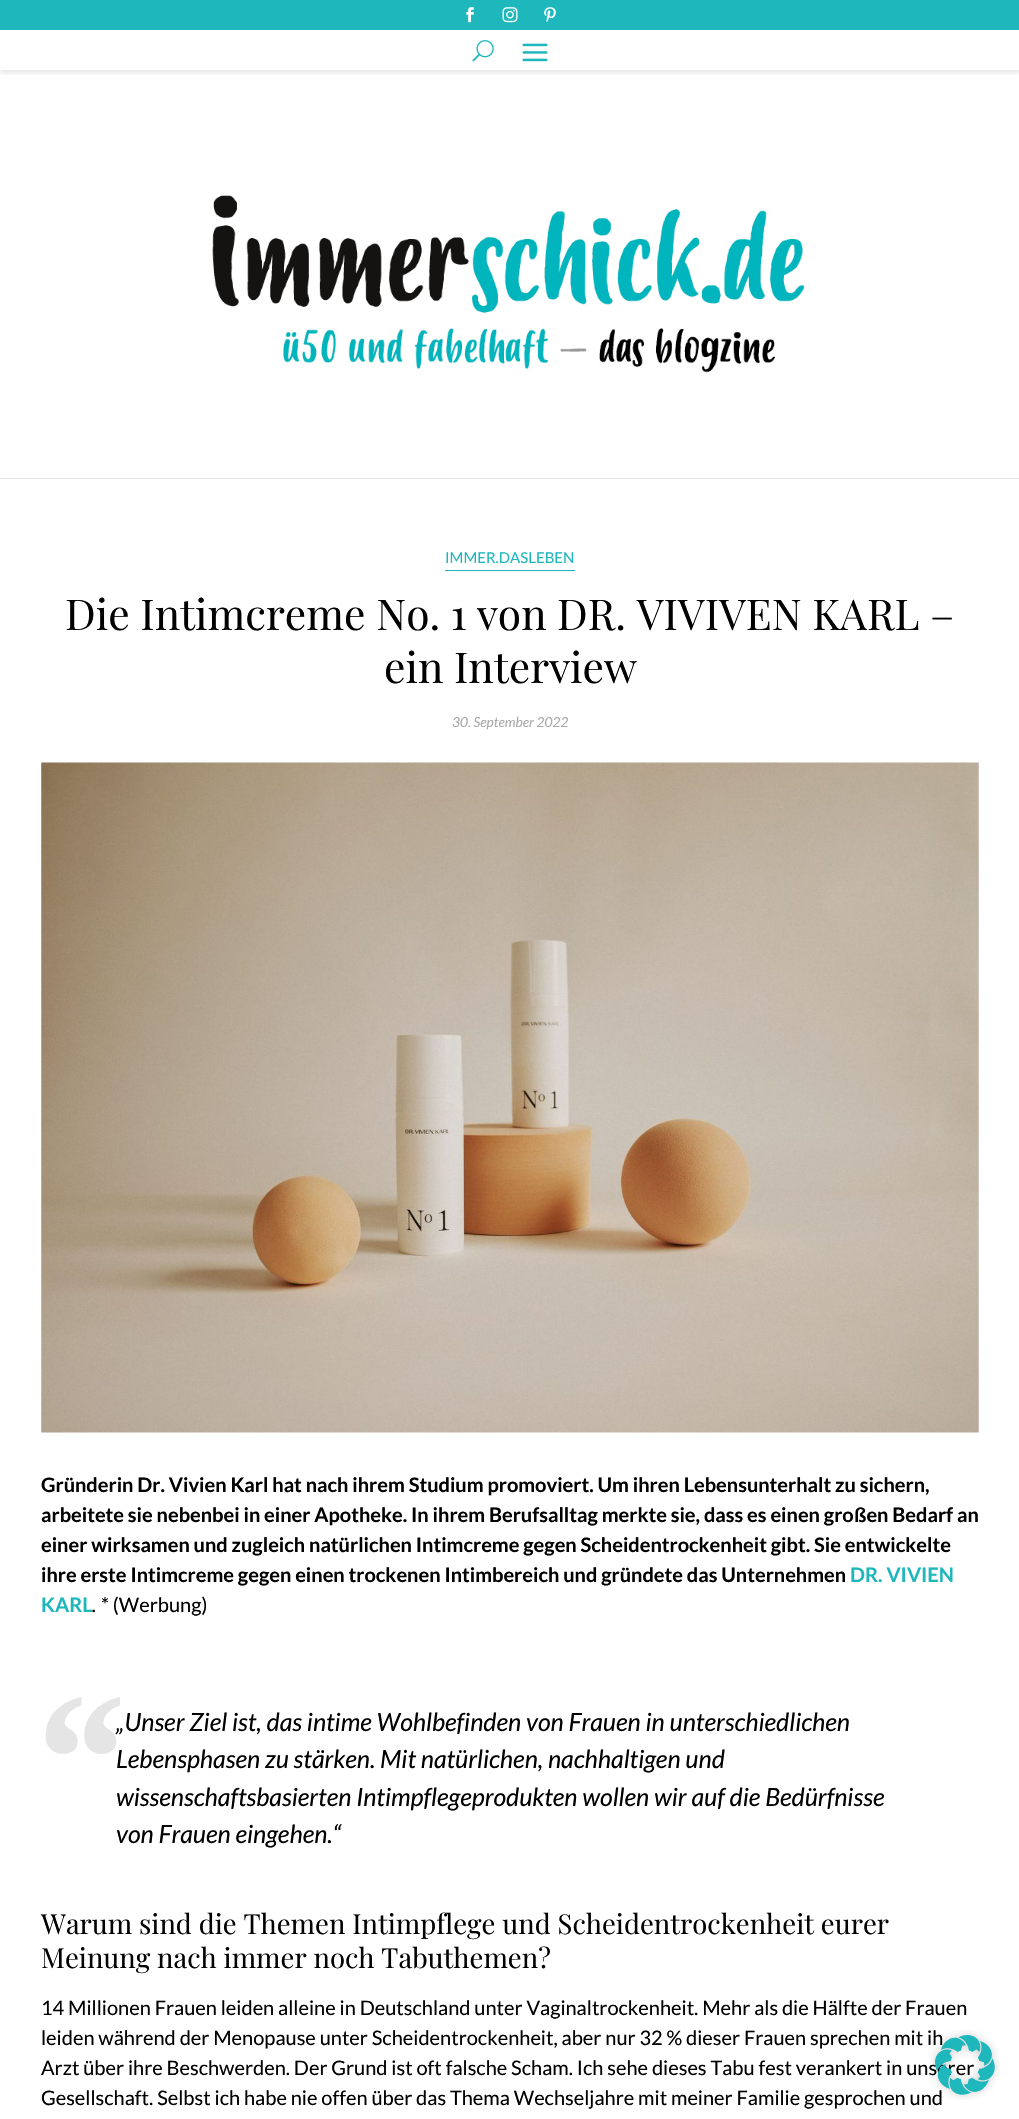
#include "include/core/SkBlurTypes.h"
#include "include/core/SkCanvas.h"
#include "include/core/SkData.h"
#include "include/core/SkFont.h"
#include "include/core/SkFontMgr.h"
#include "include/core/SkImage.h"
#include "include/core/SkMaskFilter.h"
#include "include/core/SkPaint.h"
#include "include/core/SkPathBuilder.h"
#include "include/core/SkTextBlob.h"
#include "include/effects/SkDashPathEffect.h"
#include "include/effects/SkGradientShader.h"
#include "include/utils/SkParsePath.h"

extern sk_sp<SkFontMgr> fontMgr;

void draw(SkCanvas* canvas) {
    SkPaint p;
    p.setAntiAlias(true);
    auto font = [&](const char* family, int weight, float size, bool italic = false) {
        SkFontStyle style(weight, SkFontStyle::kNormal_Width,
            italic ? SkFontStyle::kItalic_Slant : SkFontStyle::kUpright_Slant);
        SkFont result(fontMgr->matchFamilyStyle(family, style), size);
        result.setSubpixel(true);
        return result;
    };
    auto drawPhoto = [&](const char* path, float l, float t, float r, float b) {
        auto image = SkImages::DeferredFromEncodedData(SkData::MakeFromFileName(path));
        canvas->drawImageRect(image, SkRect::MakeLTRB(l, t, r, b), SkSamplingOptions());
    };
    canvas->clear(0xFFFFFFFF);
    p.setColor(0xFF1EB7BC);
    canvas->drawRect(SkRect::MakeLTRB(0, 0, 1019, 30), p);
    drawPhoto("media/1.png", 466, 7, 474, 23);
    drawPhoto("media/2.png", 502, 7, 518, 23);
    drawPhoto("media/3.png", 544, 7, 556, 22);
    canvas->save();
    canvas->clipRect(SkRect::MakeLTRB(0, 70, 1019, 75));
    p.setColor(0x1A000000);
    p.setMaskFilter(SkMaskFilter::MakeBlur(kNormal_SkBlurStyle, 2.5f));
    canvas->drawRect(SkRect::MakeLTRB(0, 33, 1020, 73), p);
    p.setMaskFilter(nullptr);
    canvas->restore();
    drawPhoto("media/4.png", 472, 40, 494, 62);
    drawPhoto("media/5.png", 522, 43, 548, 62);
    p.setColor(0xFFE5E5E5);
    canvas->drawRect(SkRect::MakeLTRB(0, 478, 1019, 479), p);
    drawPhoto("media/6.png", 212, 195, 805, 373);
    p.setColor(0xFF1EB7BC);
    canvas->drawRect(SkRect::MakeLTRB(445, 570, 575, 571), p);
    auto font1 = font("Lato", 400, 15);
    canvas->drawString("IMMER.DASLEBEN", 445, 563, font1, p);
    auto font2 = font("Playfair Display", 400, 42.5f);
    p.setColor(0xFF000000);
    canvas->drawString("Die Intimcreme No. 1 von DR. VIVIVEN KARL –", 65, 630, font2, p);
    canvas->drawString("ein Interview", 384, 683, font2, p);
    auto font3 = font("Lato", 400, 13.75f, true);
    p.setColor(0xFFAAAAAA);
    canvas->drawString("30. September 2022", 452, 727, font3, p);
    drawPhoto("media/7.png", 41, 762, 979, 1433);
    auto font4 = font("Lato", 700, 20);
    p.setColor(0xFF000000);
    {
        const struct { const char* s; float x, y; } items[] = {
            {"Gründerin Dr. Vivien Karl hat nach ihrem Studium promoviert. Um ihren Lebensunterhalt zu sichern,", 41, 1492},
            {"arbeitete sie nebenbei in einer Apotheke. In ihrem Berufsalltag merkte sie, dass es einen großen Bedarf an", 41, 1522},
            {"einer wirksamen und zugleich natürlichen Intimcreme gegen Scheidentrockenheit gibt. Sie entwickelte", 41, 1552},
            {"ihre erste Intimcreme gegen einen trockenen Intimbereich und gründete das Unternehmen", 41, 1582},
        };
        for (auto [s, x, y] : items) {
            canvas->drawString(s, x, y, font4, p);
        }
    }
    p.setColor(0xFF1EB7BC);
    canvas->drawString("DR. VIVIEN", 850, 1582, font4, p);
    canvas->drawString("KARL", 41, 1612, font4, p);
    auto font5 = font("Lato", 400, 20, true);
    p.setColor(0xFF000000);
    canvas->drawString(".", 92, 1612, font5, p);
    auto font6 = font("Lato", 400, 20);
    canvas->drawString("* (Werbung)", 101, 1612, font6, p);
    auto font7 = font("Liberation Serif", 700, 188, true);
    p.setColor(0xFFE5E5E5);
    canvas->drawString("“", 28, 1822, font7, p);
    auto font8 = font("Lato", 400, 25, true);
    p.setColor(0xFF000000);
    {
        const struct { const char* s; float x, y; } items[] = {
            {"„Unser Ziel ist, das intime Wohlbefinden von Frauen in unterschiedlichen", 116, 1731},
            {"Lebensphasen zu stärken. Mit natürlichen, nachhaltigen und", 116, 1768},
            {"wissenschaftsbasierten Intimpflegeprodukten wollen wir auf die Bedürfnisse", 116, 1806},
            {"von Frauen eingehen.“", 116, 1843},
        };
        for (auto [s, x, y] : items) {
            canvas->drawString(s, x, y, font8, p);
        }
    }
    auto font9 = font("Playfair Display", 400, 27.5f);
    canvas->drawString("Warum sind die Themen Intimpflege und Scheidentrockenheit eurer", 41, 1934, font9, p);
    canvas->drawString("Meinung nach immer noch Tabuthemen?", 41, 1968, font9, p);
    {
        const struct { const char* s; float x, y; } items[] = {
            {"14 Millionen Frauen leiden alleine in Deutschland unter Vaginaltrockenheit. Mehr als die Hälfte der Frauen", 41, 2015},
            {"leiden während der Menopause unter Scheidentrockenheit, aber nur 32 % dieser Frauen sprechen mit ih", 41, 2045},
            {"Arzt über ihre Beschwerden. Der Grund ist oft falsche Scham. Ich sehe dieses Tabu fest verankert in unserer", 41, 2075},
            {"Gesellschaft. Selbst ich habe nie offen über das Thema Wechseljahre mit meiner Familie gesprochen und", 41, 2105},
        };
        for (auto [s, x, y] : items) {
            canvas->drawString(s, x, y, font6, p);
        }
    }
    drawPhoto("media/8.png", 930, 2030, 1000, 2100);
}
